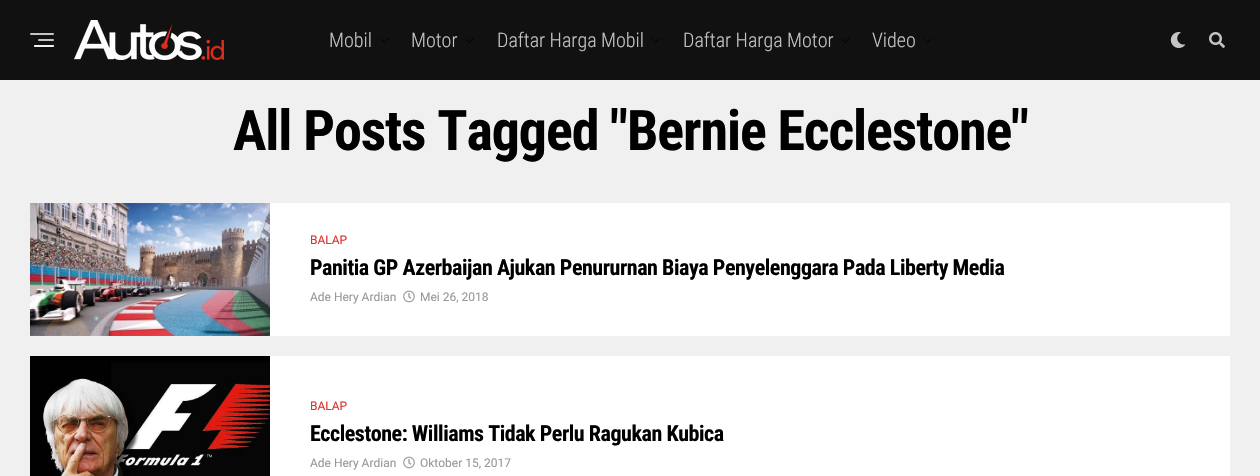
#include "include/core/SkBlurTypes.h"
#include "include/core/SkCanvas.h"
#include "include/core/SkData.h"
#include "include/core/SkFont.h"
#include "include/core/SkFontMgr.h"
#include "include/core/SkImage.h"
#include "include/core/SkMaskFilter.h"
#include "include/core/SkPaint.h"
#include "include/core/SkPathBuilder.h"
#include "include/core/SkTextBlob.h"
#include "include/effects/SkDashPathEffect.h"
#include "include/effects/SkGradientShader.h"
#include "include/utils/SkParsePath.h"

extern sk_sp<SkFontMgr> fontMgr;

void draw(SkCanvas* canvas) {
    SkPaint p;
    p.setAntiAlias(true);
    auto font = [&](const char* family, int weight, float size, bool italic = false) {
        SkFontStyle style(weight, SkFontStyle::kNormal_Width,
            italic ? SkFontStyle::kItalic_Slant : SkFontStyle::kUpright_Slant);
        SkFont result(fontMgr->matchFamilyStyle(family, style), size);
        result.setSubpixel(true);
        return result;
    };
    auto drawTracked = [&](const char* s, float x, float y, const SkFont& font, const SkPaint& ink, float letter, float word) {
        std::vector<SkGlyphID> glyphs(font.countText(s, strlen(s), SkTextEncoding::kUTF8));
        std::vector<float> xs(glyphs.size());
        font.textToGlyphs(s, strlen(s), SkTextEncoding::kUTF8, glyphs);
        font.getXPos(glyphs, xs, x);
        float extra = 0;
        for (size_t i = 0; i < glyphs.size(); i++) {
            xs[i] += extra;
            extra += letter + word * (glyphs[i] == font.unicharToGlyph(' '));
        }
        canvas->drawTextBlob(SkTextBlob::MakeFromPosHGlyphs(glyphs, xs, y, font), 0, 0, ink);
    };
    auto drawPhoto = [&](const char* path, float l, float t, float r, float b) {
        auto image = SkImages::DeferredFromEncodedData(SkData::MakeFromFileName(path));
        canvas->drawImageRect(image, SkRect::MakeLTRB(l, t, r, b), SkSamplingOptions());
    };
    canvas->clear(0xFFF0F0F0);
    p.setColor(0xFF111111);
    canvas->drawRect(SkRect::MakeLTRB(0, 0, 1260, 80), p);
    p.setColor(0xFFC4C4C4);
    canvas->drawRoundRect(SkRect::MakeLTRB(30, 33, 54, 35), 1, 1, p);
    canvas->drawRoundRect(SkRect::MakeLTRB(38, 39, 54, 41), 1, 1, p);
    canvas->drawRoundRect(SkRect::MakeLTRB(34, 45, 54, 47), 1, 1, p);
    p.setColor(0xBFFFFFFF);
    canvas->drawRoundRect(SkRect::MakeLTRB(34, 45, 54, 47), 1, 1, p);
    drawPhoto("media/1.png", 74, 20, 224, 60);
    auto font1 = font("Roboto Condensed", 300, 20);
    p.setColor(0xFFC4C4C4);
    canvas->drawString("Mobil", 329, 47, font1, p);
    p.setColor(0xFF000000);
    canvas->drawPath(SkPathBuilder().moveTo(387.5f, 38.5f).lineTo(388.5f, 39).lineTo(384, 43).lineTo(383.5f, 42.5f).close().detach(), p);
    canvas->drawPath(SkPathBuilder().moveTo(380.5f, 38.5f).lineTo(385, 42.5f).lineTo(384, 43).lineTo(380, 39).close().detach(), p);
    p.setColor(0xFFC4C4C4);
    canvas->drawString("Motor", 411, 47, font1, p);
    p.setColor(0xFF000000);
    canvas->drawPath(SkPathBuilder().moveTo(473, 38.5f).lineTo(474, 39).lineTo(469.5f, 43).lineTo(469, 42.5f).close().detach(), p);
    canvas->drawPath(SkPathBuilder().moveTo(466, 38.5f).lineTo(470.5f, 42.5f).lineTo(469.5f, 43).lineTo(465.5f, 39).close().detach(), p);
    p.setColor(0xFFC4C4C4);
    canvas->drawString("Daftar Harga Mobil", 497, 47, font1, p);
    p.setColor(0xFF000000);
    canvas->drawPath(SkPathBuilder().moveTo(659, 38.5f).lineTo(660, 39).lineTo(655.5f, 43).lineTo(655, 42.5f).close().detach(), p);
    canvas->drawPath(SkPathBuilder().moveTo(652, 38.5f).lineTo(656.5f, 42.5f).lineTo(655.5f, 43).lineTo(651.5f, 39).close().detach(), p);
    p.setColor(0xFFC4C4C4);
    canvas->drawString("Daftar Harga Motor", 683, 47, font1, p);
    p.setColor(0xFF000000);
    canvas->drawPath(SkPathBuilder().moveTo(848.5f, 38.5f).lineTo(849.5f, 39).lineTo(845, 43).lineTo(844.5f, 42.5f).close().detach(), p);
    canvas->drawPath(SkPathBuilder().moveTo(841.5f, 38.5f).lineTo(845.5f, 42.5f).lineTo(845, 43).lineTo(841, 39).close().detach(), p);
    p.setColor(0xFFC4C4C4);
    canvas->drawString("Video", 872, 47, font1, p);
    p.setColor(0xFF000000);
    canvas->drawPath(SkPathBuilder().moveTo(931.5f, 38.5f).lineTo(932, 39).lineTo(928, 43).lineTo(927, 42.5f).close().detach(), p);
    canvas->drawPath(SkPathBuilder().moveTo(924, 38.5f).lineTo(928.5f, 42.5f).lineTo(928, 43).lineTo(923.5f, 39).close().detach(), p);
    drawPhoto("media/2.png", 1170, 32, 1186, 48);
    drawPhoto("media/3.png", 1209, 32, 1225, 48);
    auto font2 = font("Roboto Condensed", 700, 56);
    drawTracked("All Posts Tagged \"Bernie Ecclestone\"", 233, 150, font2, p, -1.1f, 0);
    p.setColor(0xFFFFFFFF);
    canvas->drawRect(SkRect::MakeLTRB(270, 203, 1230, 336), p);
    drawPhoto("media/4.png", 30, 203, 270, 336);
    auto font3 = font("Roboto", 400, 12);
    p.setColor(0xFFDD3333);
    canvas->drawString("BALAP", 310, 244, font3, p);
    auto font4 = font("Roboto Condensed", 700, 22);
    p.setColor(0xFF000000);
    drawTracked("Panitia GP Azerbaijan Ajukan Penururnan Biaya Penyelenggara Pada Liberty Media", 310, 275, font4, p, -0.45f, 0);
    p.setColor(0xFF999999);
    canvas->drawString("Ade Hery Ardian", 310, 301, font3, p);
    drawPhoto("media/5.png", 403, 290, 415, 303);
    canvas->drawString("Mei 26, 2018", 420, 301, font3, p);
    p.setColor(0xFFFFFFFF);
    canvas->drawRect(SkRect::MakeLTRB(270, 356, 1230, 476), p);
    drawPhoto("media/6.png", 30, 356, 270, 476);
    p.setColor(0xFFDD3333);
    canvas->drawString("BALAP", 310, 410, font3, p);
    p.setColor(0xFF000000);
    drawTracked("Ecclestone: Williams Tidak Perlu Ragukan Kubica", 310, 441, font4, p, -0.45f, 0);
    p.setColor(0xFF999999);
    canvas->drawString("Ade Hery Ardian", 310, 467, font3, p);
    drawPhoto("media/5.png", 403, 456, 415, 469);
    canvas->drawString("Oktober 15, 2017", 420, 467, font3, p);
}
